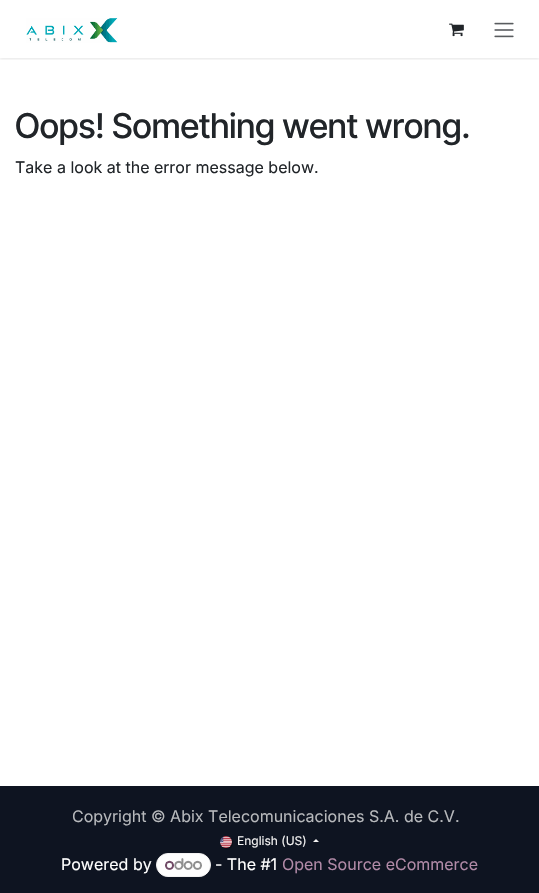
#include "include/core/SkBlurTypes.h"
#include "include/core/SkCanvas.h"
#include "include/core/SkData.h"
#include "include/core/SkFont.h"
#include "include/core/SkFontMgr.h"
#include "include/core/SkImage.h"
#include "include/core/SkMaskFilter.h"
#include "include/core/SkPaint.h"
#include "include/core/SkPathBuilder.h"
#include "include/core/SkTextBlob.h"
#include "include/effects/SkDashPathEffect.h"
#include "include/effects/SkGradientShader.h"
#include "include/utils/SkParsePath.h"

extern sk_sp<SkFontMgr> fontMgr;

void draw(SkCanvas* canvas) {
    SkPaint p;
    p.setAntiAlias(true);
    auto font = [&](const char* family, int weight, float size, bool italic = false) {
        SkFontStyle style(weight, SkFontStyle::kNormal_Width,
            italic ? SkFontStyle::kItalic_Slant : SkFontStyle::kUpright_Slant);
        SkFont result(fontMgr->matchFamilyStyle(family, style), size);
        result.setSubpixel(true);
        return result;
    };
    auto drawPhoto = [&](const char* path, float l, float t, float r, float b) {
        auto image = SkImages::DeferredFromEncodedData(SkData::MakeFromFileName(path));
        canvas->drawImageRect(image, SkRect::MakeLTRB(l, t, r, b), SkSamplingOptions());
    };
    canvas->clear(0xFFFFFFFF);
    canvas->save();
    canvas->clipRect(SkRect::MakeLTRB(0, 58, 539, 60));
    p.setColor(0x1A000000);
    p.setMaskFilter(SkMaskFilter::MakeBlur(kNormal_SkBlurStyle, 1.5f));
    canvas->drawRect(SkRect::MakeLTRB(0, 1, 539, 59), p);
    p.setMaskFilter(nullptr);
    canvas->restore();
    drawPhoto("media/1.png", 26, 18, 118, 43);
    drawPhoto("media/2.png", 449, 23, 464, 37);
    drawPhoto("media/3.png", 494, 22, 514, 38);
    auto font1 = font("Inter Tight", 500, 34.1f);
    p.setColor(0xFF212529);
    canvas->drawString("Oops! Something went wrong.", 15, 138, font1, p);
    auto font2 = font("Inter", 400, 16);
    canvas->drawString("Take a look at the error message below.", 15, 173, font2, p);
    p.setColor(0xFF0E1421);
    canvas->drawRect(SkRect::MakeLTRB(0, 786, 539, 893), p);
    p.setColor(0xFFB7B9BC);
    canvas->drawString("Copyright © Abix Telecomunicaciones S.A. de C.V.", 72, 822, font2, p);
    p.setColor(0x6E000000);
    p.setMaskFilter(SkMaskFilter::MakeBlur(kNormal_SkBlurStyle, 0.5f));
    canvas->drawRoundRect(SkRect::MakeLTRB(221, 837, 233, 849), 6, 6, p);
    p.setMaskFilter(nullptr);
    auto font3 = font("Inter", 400, 12);
    p.setColor(0xFFF3F2F2);
    canvas->drawString("English (US)", 237, 845, font3, p);
    drawPhoto("media/4.png", 220, 836, 232, 848);
    canvas->drawPath(SkPathBuilder().moveTo(319, 842).lineTo(313, 842).lineTo(316, 839).close().detach(), p);
    p.setColor(0xFFFFFFFF);
    canvas->drawString("Powered by", 61, 870, font2, p);
    p.setColor(0xFFFEFEFE);
    canvas->drawRoundRect(SkRect::MakeLTRB(156.5f, 853.5f, 210.5f, 876.5f), 11.5f, 11.5f, p);
    p.setStyle(SkPaint::kStroke_Style);
    p.setStrokeWidth(1);
    p.setColor(0xFFF3F2F2);
    canvas->drawRoundRect(SkRect::MakeLTRB(156.5f, 853.5f, 210.5f, 876.5f), 11.5f, 11.5f, p);
    drawPhoto("media/5.png", 165, 858, 202, 870);
    p.setStyle(SkPaint::kFill_Style);
    p.setColor(0xFFFFFFFF);
    canvas->drawString("- The #1", 215, 870, font2, p);
    p.setColor(0xFFB18AA7);
    canvas->drawString("Open Source eCommerce", 282, 870, font2, p);
}
